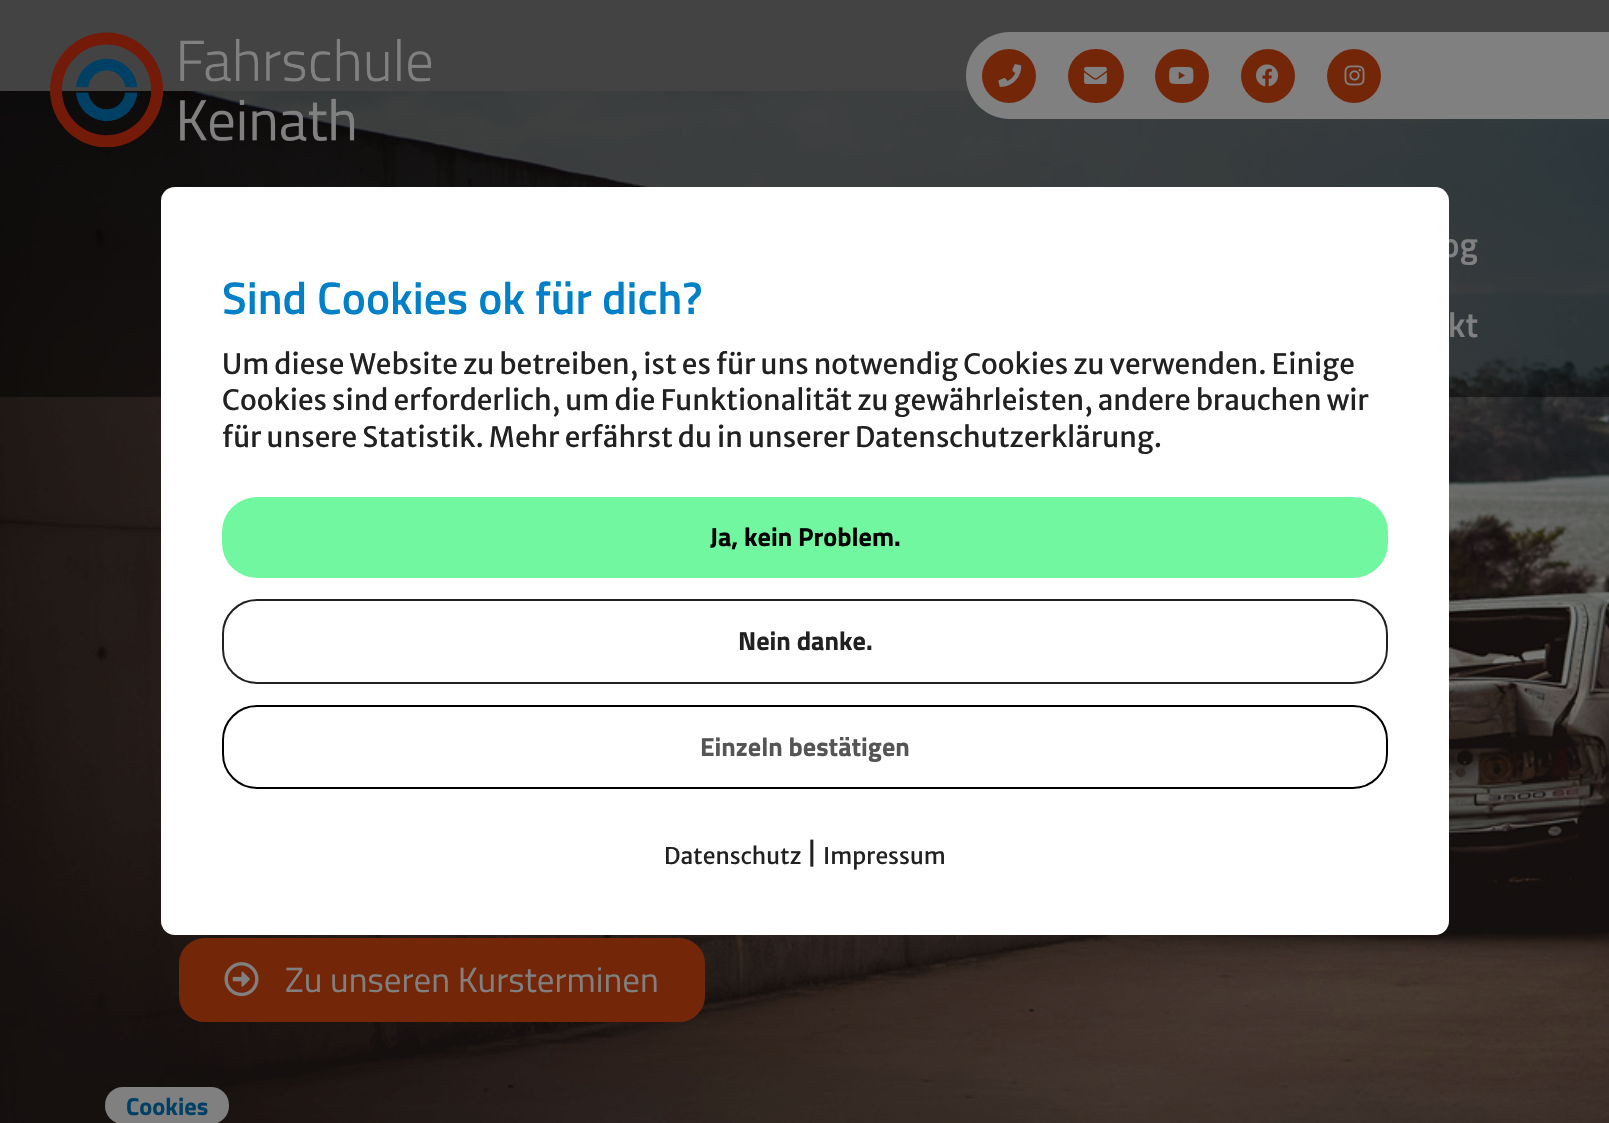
#include "include/core/SkBlurTypes.h"
#include "include/core/SkCanvas.h"
#include "include/core/SkData.h"
#include "include/core/SkFont.h"
#include "include/core/SkFontMgr.h"
#include "include/core/SkImage.h"
#include "include/core/SkMaskFilter.h"
#include "include/core/SkPaint.h"
#include "include/core/SkPathBuilder.h"
#include "include/core/SkTextBlob.h"
#include "include/effects/SkDashPathEffect.h"
#include "include/effects/SkGradientShader.h"
#include "include/utils/SkParsePath.h"

extern sk_sp<SkFontMgr> fontMgr;

void draw(SkCanvas* canvas) {
    SkPaint p;
    p.setAntiAlias(true);
    auto font = [&](const char* family, int weight, float size, bool italic = false) {
        SkFontStyle style(weight, SkFontStyle::kNormal_Width,
            italic ? SkFontStyle::kItalic_Slant : SkFontStyle::kUpright_Slant);
        SkFont result(fontMgr->matchFamilyStyle(family, style), size);
        result.setSubpixel(true);
        return result;
    };
    auto drawPhoto = [&](const char* path, float l, float t, float r, float b) {
        auto image = SkImages::DeferredFromEncodedData(SkData::MakeFromFileName(path));
        canvas->drawImageRect(image, SkRect::MakeLTRB(l, t, r, b), SkSamplingOptions());
    };
    canvas->clear(0xFF808080);
    drawPhoto("media/7.png", 0, 91, 1609, 1123);
    p.setColor(0x7A000000);
    canvas->drawRect(SkRect::MakeLTRB(0, 0, 1609, 397), p);
    auto font1 = font("Titillium Web", 600, 35);
    p.setColor(0xFF808080);
    canvas->drawString("og", 1441, 257, font1, p);
    p.setColor(0xFFFFFFFF);
    canvas->drawRoundRect(SkRect::MakeLTRB(161, 187, 1449, 935), 14, 14, p);
    auto font2 = font("Titillium Web", 600, 45.5f);
    p.setColor(0xFF0080C8);
    canvas->drawString("Sind Cookies ok für dich?", 222, 314, font2, p);
    auto font3 = font("Merriweather Sans", 400, 28);
    p.setColor(0xFF212121);
    {
        const struct { const char* s; float x, y; } items[] = {
            {"Um diese Website zu betreiben, ist es für uns notwendig Cookies zu verwenden. Einige", 222, 374},
            {"Cookies sind erforderlich, um die Funktionalität zu gewährleisten, andere brauchen wir", 222, 410},
            {"für unsere Statistik. Mehr erfährst du in unserer Datenschutzerklärung.", 222, 447},
        };
        for (auto [s, x, y] : items) {
            canvas->drawString(s, x, y, font3, p);
        }
    }
    p.setColor(0xFF71F79F);
    canvas->drawRoundRect(SkRect::MakeLTRB(222, 497, 1388, 578), 35, 35, p);
    auto font4 = font("Titillium Web", 700, 26.25f);
    p.setColor(0xFF000000);
    canvas->drawString("Ja, kein Problem.", 710, 546, font4, p);
    p.setStyle(SkPaint::kStroke_Style);
    p.setStrokeWidth(2);
    p.setColor(0xFF212121);
    canvas->drawRoundRect(SkRect::MakeLTRB(223, 600, 1387, 683), 34, 34, p);
    p.setStyle(SkPaint::kFill_Style);
    canvas->drawString("Nein danke.", 738, 650, font4, p);
    p.setStyle(SkPaint::kStroke_Style);
    p.setColor(0xFF000000);
    canvas->drawRoundRect(SkRect::MakeLTRB(223, 706, 1387, 788), 34, 34, p);
    p.setStyle(SkPaint::kFill_Style);
    p.setColor(0xFF555555);
    canvas->drawString("Einzeln bestätigen", 700, 756, font4, p);
    auto font5 = font("Merriweather Sans", 400, 22.75f);
    p.setColor(0xFF212121);
    canvas->drawString("Datenschutz", 664, 864, font5, p);
    canvas->drawString("|", 806, 864, font3, p);
    canvas->drawString("Impressum", 823, 864, font5, p);
    drawPhoto("media/1.png", 50, 32, 432, 148);
    p.setColor(0xFF808080);
    canvas->drawPath(SkPathBuilder().moveTo(1009.5f, 32).lineTo(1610, 32).lineTo(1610, 119).lineTo(1009.5f, 119).cubicTo(985.5f, 119, 966, 99.5f, 966, 75.5f).cubicTo(966, 51.5f, 985.5f, 32, 1009.5f, 32).close().detach(), p);
    p.setColor(0xFF742708);
    canvas->drawCircle(1009, 76, 27, p);
    drawPhoto("media/2.png", 998, 64, 1022, 87);
    canvas->drawRoundRect(SkRect::MakeLTRB(1068, 49, 1124, 103), 27, 27, p);
    drawPhoto("media/3.png", 1084, 66, 1107, 84);
    canvas->drawCircle(1182, 76, 27, p);
    drawPhoto("media/4.png", 1169, 66, 1194, 84);
    canvas->drawCircle(1268, 76, 27, p);
    drawPhoto("media/5.png", 1256, 64, 1278, 87);
    canvas->drawCircle(1354, 76, 27, p);
    drawPhoto("media/6.png", 1344, 65, 1365, 86);
    p.setColor(0xFF808080);
    canvas->drawString("kt", 1448, 337, font1, p);
    p.setColor(0xFF742708);
    canvas->drawRoundRect(SkRect::MakeLTRB(181, 940, 703, 1020), 24, 24, p);
    p.setStyle(SkPaint::kStroke_Style);
    p.setStrokeWidth(4);
    canvas->drawRoundRect(SkRect::MakeLTRB(181, 940, 703, 1020), 24, 24, p);
    drawPhoto("media/8.png", 224, 962, 259, 997);
    auto font6 = font("Titillium Web", 400, 35);
    p.setStyle(SkPaint::kFill_Style);
    p.setColor(0xFF808080);
    canvas->drawString("Zu unseren Kursterminen", 285, 992, font6, p);
    canvas->drawRoundRect(SkRect::MakeLTRB(105, 1087, 229, 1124), 18, 18, p);
    auto font7 = font("Titillium Web", 700, 24.5f);
    p.setColor(0xFF004064);
    canvas->drawString("Cookies", 126, 1115, font7, p);
}
